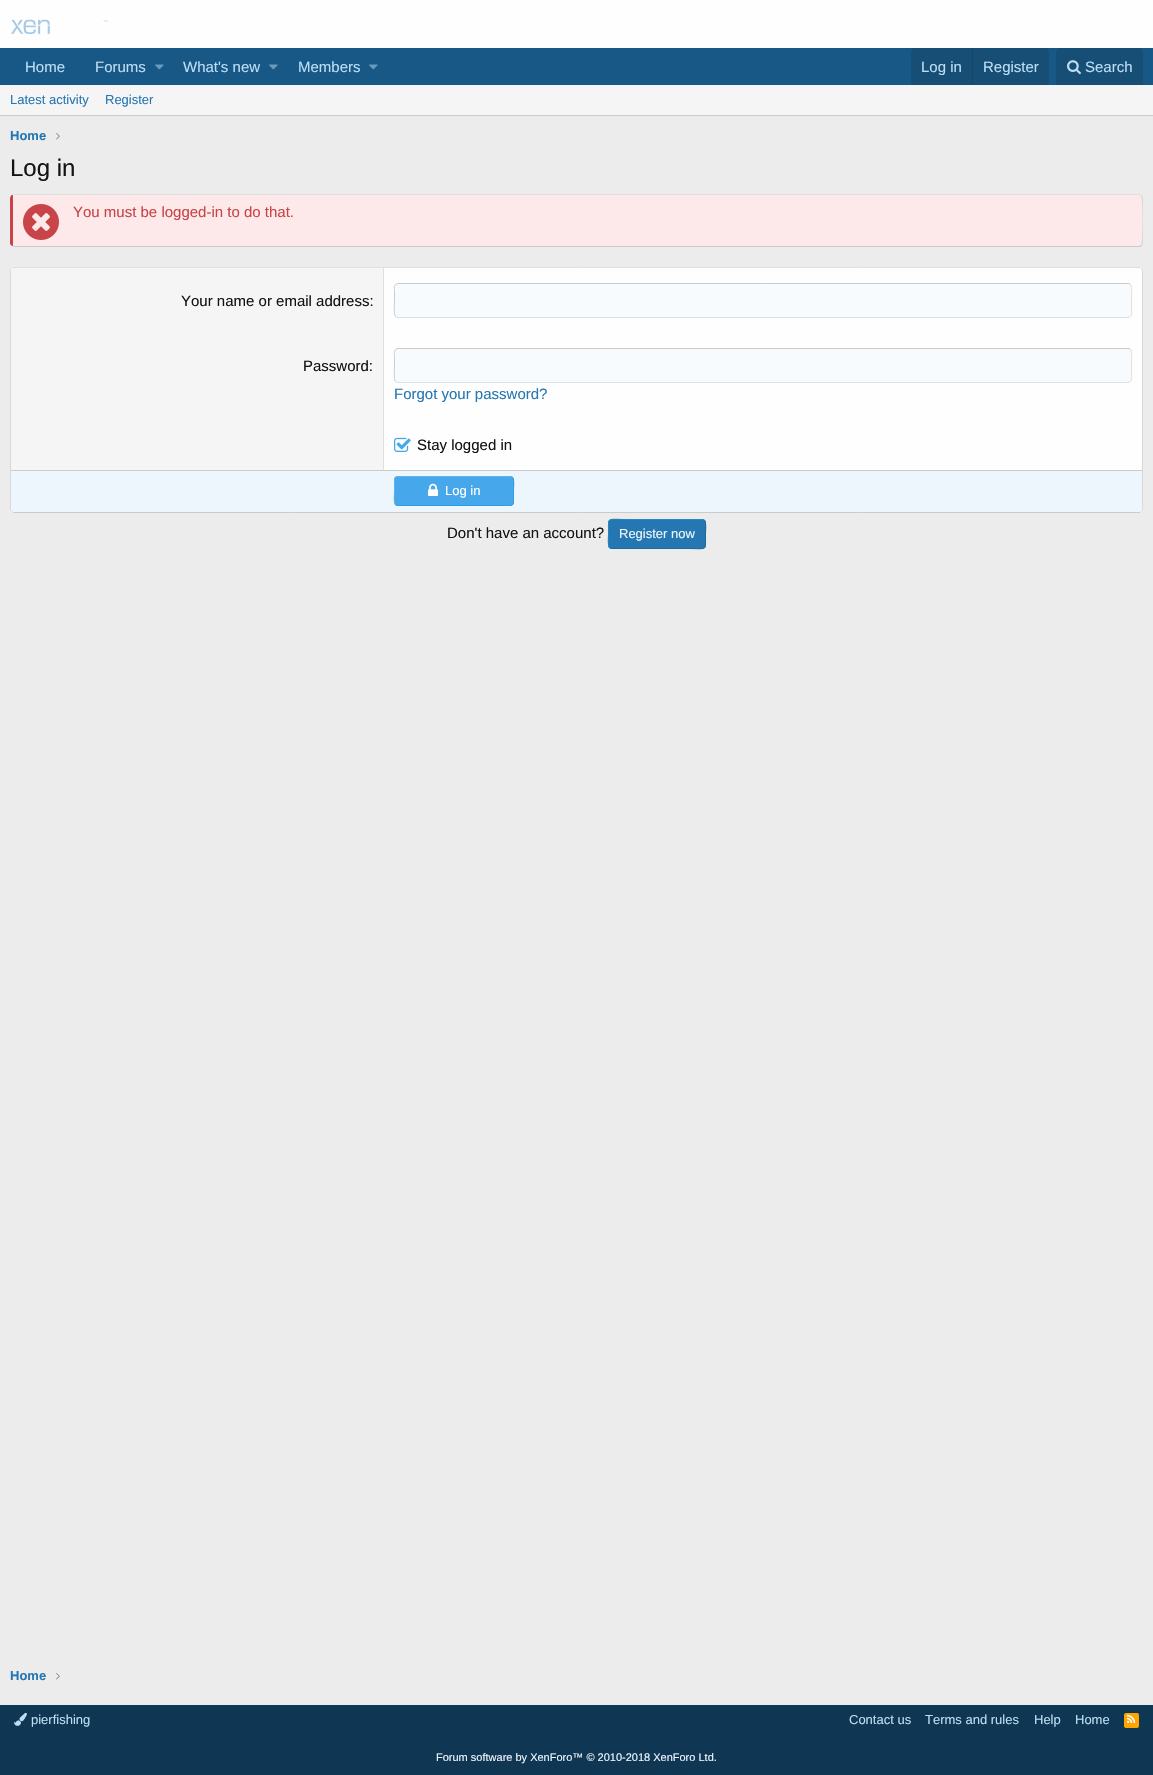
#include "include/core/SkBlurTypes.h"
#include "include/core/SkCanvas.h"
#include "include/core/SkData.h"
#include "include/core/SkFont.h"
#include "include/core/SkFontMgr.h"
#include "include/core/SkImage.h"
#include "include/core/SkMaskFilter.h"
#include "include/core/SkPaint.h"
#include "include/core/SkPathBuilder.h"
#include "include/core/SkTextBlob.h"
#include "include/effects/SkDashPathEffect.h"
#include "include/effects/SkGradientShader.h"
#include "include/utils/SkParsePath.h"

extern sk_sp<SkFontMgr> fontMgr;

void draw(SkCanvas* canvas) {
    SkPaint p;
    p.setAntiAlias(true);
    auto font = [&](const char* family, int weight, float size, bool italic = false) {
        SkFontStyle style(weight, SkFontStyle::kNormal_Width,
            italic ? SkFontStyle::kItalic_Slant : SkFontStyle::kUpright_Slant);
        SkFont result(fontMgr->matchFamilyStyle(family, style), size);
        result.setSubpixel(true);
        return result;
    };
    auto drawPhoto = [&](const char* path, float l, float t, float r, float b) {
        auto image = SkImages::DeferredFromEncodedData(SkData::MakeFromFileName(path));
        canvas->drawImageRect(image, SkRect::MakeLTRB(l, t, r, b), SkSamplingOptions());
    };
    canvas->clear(0xFFECECEC);
    p.setColor(0xFFFEFEFE);
    canvas->drawRect(SkRect::MakeLTRB(0, 0, 1153, 48), p);
    drawPhoto("media/1.png", 11, 19, 108, 34);
    p.setColor(0xFF185886);
    canvas->drawRect(SkRect::MakeLTRB(0, 48, 1153, 85), p);
    auto font1 = font("Liberation Sans", 400, 15);
    p.setColor(0xFFBCDEF5);
    canvas->drawString("Home", 25, 72, font1, p);
    canvas->drawString("Forums", 95, 72, font1, p);
    drawPhoto("media/2.png", 155, 64, 164, 70);
    canvas->drawString("What's new", 183, 72, font1, p);
    drawPhoto("media/2.png", 269, 64, 278, 70);
    canvas->drawString("Members", 298, 72, font1, p);
    drawPhoto("media/2.png", 369, 64, 378, 70);
    p.setColor(0xFF174E75);
    canvas->drawPath(SkPathBuilder().moveTo(915, 48).lineTo(1045, 48).cubicTo(1047, 48, 1049, 50, 1049, 52).lineTo(1049, 85).lineTo(911, 85).lineTo(911, 52).cubicTo(911, 50, 913, 48, 915, 48).close().detach(), p);
    p.setColor(0xFFBCDEF5);
    canvas->drawString("Log in", 921, 72, font1, p);
    p.setColor(0xFF174566);
    canvas->drawRect(SkRect::MakeLTRB(972, 48, 973, 85), p);
    p.setColor(0xFFBCDEF5);
    canvas->drawString("Register", 983, 72, font1, p);
    p.setColor(0xFF174E75);
    canvas->drawPath(SkPathBuilder().moveTo(1060, 48).lineTo(1139, 48).cubicTo(1141, 48, 1143, 50, 1143, 52).lineTo(1143, 85).lineTo(1056, 85).lineTo(1056, 52).cubicTo(1056, 50, 1058, 48, 1060, 48).close().detach(), p);
    drawPhoto("media/3.png", 1067, 60, 1081, 75);
    p.setColor(0xFFBCDEF5);
    canvas->drawString("Search", 1085, 72, font1, p);
    p.setColor(0xFFF5F5F5);
    canvas->drawRect(SkRect::MakeLTRB(0, 85, 1153, 115), p);
    p.setColor(0xFFCBCBCB);
    canvas->drawRect(SkRect::MakeLTRB(0, 115, 1153, 116), p);
    auto font2 = font("Liberation Sans", 400, 13);
    p.setColor(0xFF2577B1);
    canvas->drawString("Latest activity", 10, 104, font2, p);
    canvas->drawString("Register", 105, 104, font2, p);
    auto font3 = font("Liberation Sans", 700, 13);
    canvas->drawString("Home", 10, 140, font3, p);
    drawPhoto("media/4.png", 56, 133, 60, 140);
    auto font4 = font("Liberation Sans", 400, 24);
    p.setColor(0xFF141414);
    canvas->drawString("Log in", 10, 176, font4, p);
    p.setColor(0xFFFDE9E9);
    canvas->drawPath(SkPathBuilder().moveTo(14, 195).lineTo(1139, 195).cubicTo(1141, 195, 1142, 196, 1142, 198).lineTo(1142, 243).cubicTo(1142, 245, 1141, 246, 1139, 246).lineTo(14, 246).cubicTo(13, 246, 13, 245, 13, 243).lineTo(13, 198).cubicTo(13, 196, 13, 195, 14, 195).close().detach(), p);
    p.setColor(0xFFDFDFDF);
    canvas->drawPath(SkPathBuilder().moveTo(14, 194).lineTo(12, 195).lineTo(13, 195).lineTo(1139, 195).lineTo(1141, 196).lineTo(1142, 195).lineTo(1139, 194).close().detach(), p);
    p.setColor(0xFFD8D8D8);
    canvas->drawPath(SkPathBuilder().moveTo(1143, 243).lineTo(1143, 198).cubicTo(1143, 197, 1142, 196, 1142, 195).lineTo(1141, 196).cubicTo(1143, 197, 1143, 244, 1141, 245).lineTo(1142, 246).close().detach(), p);
    p.setColor(0xFFCBCBCB);
    canvas->drawPath(SkPathBuilder().moveTo(14, 247).lineTo(1139, 247).lineTo(1142, 246).lineTo(1141, 245).lineTo(1139, 246).lineTo(13, 246).lineTo(12, 246).close().detach(), p);
    p.setColor(0xFFC84448);
    canvas->drawPath(SkPathBuilder().moveTo(10, 198).lineTo(10, 244).lineTo(12, 246).lineTo(13, 246).lineTo(13, 245).lineTo(13, 195).lineTo(12, 195).cubicTo(11, 195, 10, 197, 10, 198).close().detach(), p);
    drawPhoto("media/5.png", 23, 204, 59, 240);
    canvas->drawString("You must be logged-in to do that.", 73, 217, font1, p);
    p.setColor(0xFFFEFEFE);
    canvas->drawRoundRect(SkRect::MakeLTRB(10, 267, 1143, 513), 4, 4, p);
    p.setStyle(SkPaint::kStroke_Style);
    p.setStrokeWidth(1);
    p.setColor(0xFFDFDFDF);
    canvas->drawPath(SkPathBuilder().moveTo(11.5f, 268.5f).lineTo(14, 267.5f).lineTo(1139, 267.5f).lineTo(1141.5f, 268.5f).detach(), p);
    p.setColor(0xFFD8D8D8);
    canvas->drawPath(SkPathBuilder().moveTo(1141.5f, 268.5f).cubicTo(1142, 269, 1142.5f, 270, 1142.5f, 271).lineTo(1142.5f, 509).cubicTo(1142.5f, 510, 1142, 511, 1141.5f, 511.5f).detach(), p);
    p.setColor(0xFFCBCBCB);
    canvas->drawPath(SkPathBuilder().moveTo(1141.5f, 511.5f).lineTo(1139, 512.5f).lineTo(14, 512.5f).lineTo(11.5f, 511.5f).detach(), p);
    p.setColor(0xFFD8D8D8);
    canvas->drawPath(SkPathBuilder().moveTo(11.5f, 511.5f).cubicTo(11, 511, 10.5f, 510, 10.5f, 509).lineTo(10.5f, 271).cubicTo(10.5f, 270, 11, 269, 11.5f, 268.5f).detach(), p);
    p.setStyle(SkPaint::kFill_Style);
    p.setColor(0xFFF5F5F5);
    canvas->drawPath(SkPathBuilder().moveTo(14, 268).lineTo(384, 268).lineTo(384, 333).lineTo(11, 333).lineTo(11, 271).cubicTo(11, 269.5f, 12.5f, 268, 14, 268).close().detach(), p);
    p.setColor(0xFFDFDFDF);
    canvas->drawRect(SkRect::MakeLTRB(383, 268, 384, 470), p);
    p.setColor(0xFF141414);
    canvas->drawString("Your name or email address:", 181, 306, font1, p);
    p.setColor(0xFFF7FBFE);
    canvas->drawRoundRect(SkRect::MakeLTRB(394, 283, 1132, 318), 4, 4, p);
    p.setStyle(SkPaint::kStroke_Style);
    p.setColor(0xFFDFDFDF);
    canvas->drawPath(SkPathBuilder().moveTo(1130.5f, 284.5f).cubicTo(1132.5f, 287, 1131.5f, 297.5f, 1131.5f, 300.5f).lineTo(1131.5f, 309.5f).cubicTo(1131.5f, 312, 1132.5f, 315.5f, 1129.5f, 317).lineTo(1128, 317.5f).lineTo(397, 317.5f).lineTo(395.5f, 316.5f).detach(), p);
    p.setColor(0xFFCBCBCB);
    canvas->drawPath(SkPathBuilder().moveTo(395.5f, 316.5f).cubicTo(393.5f, 314, 394.5f, 303.5f, 394.5f, 300.5f).lineTo(394.5f, 291.5f).cubicTo(394.5f, 289, 393.5f, 285.5f, 396.5f, 284).lineTo(398, 283.5f).lineTo(1129, 283.5f).lineTo(1130.5f, 284.5f).detach(), p);
    p.setStyle(SkPaint::kFill_Style);
    p.setColor(0xFFF5F5F5);
    canvas->drawRect(SkRect::MakeLTRB(11, 333, 383, 470), p);
    p.setColor(0xFF141414);
    canvas->drawString("Password:", 303, 371, font1, p);
    p.setColor(0xFFF7FBFE);
    canvas->drawRoundRect(SkRect::MakeLTRB(394, 348, 1132, 383), 4, 4, p);
    p.setStyle(SkPaint::kStroke_Style);
    p.setColor(0xFFDFDFDF);
    canvas->drawPath(SkPathBuilder().moveTo(1130.5f, 349.5f).cubicTo(1132.5f, 352, 1131.5f, 362.5f, 1131.5f, 365.5f).lineTo(1131.5f, 374.5f).cubicTo(1131.5f, 377, 1132.5f, 380.5f, 1129.5f, 382).lineTo(1128, 382.5f).lineTo(397, 382.5f).lineTo(395.5f, 381.5f).detach(), p);
    p.setColor(0xFFCBCBCB);
    canvas->drawPath(SkPathBuilder().moveTo(395.5f, 381.5f).cubicTo(393.5f, 379, 394.5f, 368.5f, 394.5f, 365.5f).lineTo(394.5f, 356.5f).cubicTo(394.5f, 354, 393.5f, 350.5f, 396.5f, 349).lineTo(398, 348.5f).lineTo(1129, 348.5f).lineTo(1130.5f, 349.5f).detach(), p);
    p.setStyle(SkPaint::kFill_Style);
    p.setColor(0xFF2577B1);
    canvas->drawString("Forgot your password?", 394, 399, font1, p);
    drawPhoto("media/6.png", 394, 437, 411, 452);
    p.setColor(0xFF141414);
    canvas->drawString("Stay logged in", 417, 450, font1, p);
    p.setColor(0xFFEDF6FD);
    canvas->drawPath(SkPathBuilder().moveTo(11, 470).lineTo(1142, 470).lineTo(1142, 509).cubicTo(1142, 510.5f, 1140.5f, 512, 1139, 512).lineTo(14, 512).cubicTo(12.5f, 512, 11, 510.5f, 11, 509).close().detach(), p);
    p.setColor(0xFFCBCBCB);
    canvas->drawRect(SkRect::MakeLTRB(11, 470, 1142, 471), p);
    p.setColor(0xFF47A7EB);
    canvas->drawRoundRect(SkRect::MakeLTRB(394, 476, 514, 506), 4, 4, p);
    p.setStyle(SkPaint::kStroke_Style);
    p.setColor(0xFF309CE8);
    canvas->drawPath(SkPathBuilder().moveTo(512.5f, 477.5f).cubicTo(514.5f, 479.5f, 513.5f, 488, 513.5f, 491).lineTo(513.5f, 498.5f).cubicTo(513.5f, 501, 514, 505.5f, 510, 505.5f).lineTo(397.5f, 505.5f).lineTo(395.5f, 504.5f).detach(), p);
    p.setColor(0xFF5EB2ED);
    canvas->drawPath(SkPathBuilder().moveTo(395.5f, 504.5f).cubicTo(393.5f, 502.5f, 394.5f, 494, 394.5f, 491).lineTo(394.5f, 483.5f).cubicTo(394.5f, 481, 394, 476.5f, 398, 476.5f).lineTo(510.5f, 476.5f).lineTo(512.5f, 477.5f).detach(), p);
    drawPhoto("media/7.png", 428, 483, 439, 496);
    p.setStyle(SkPaint::kFill_Style);
    p.setColor(0xFFFFFFFF);
    canvas->drawString("Log in", 445, 495, font2, p);
    p.setColor(0xFF141414);
    canvas->drawString("Don't have an account?", 447, 538, font1, p);
    p.setColor(0xFF2577B1);
    canvas->drawRoundRect(SkRect::MakeLTRB(608, 519, 706, 549), 4, 4, p);
    p.setStyle(SkPaint::kStroke_Style);
    p.setColor(0xFF21699C);
    canvas->drawPath(SkPathBuilder().moveTo(704.5f, 520.5f).cubicTo(706.5f, 522.5f, 705.5f, 531, 705.5f, 534).cubicTo(705.5f, 552, 707.5f, 548.5f, 687, 548.5f).lineTo(612, 548.5f).lineTo(609.5f, 547.5f).detach(), p);
    p.setColor(0xFF2985C6);
    canvas->drawPath(SkPathBuilder().moveTo(609.5f, 547.5f).cubicTo(607.5f, 545.5f, 608.5f, 537, 608.5f, 534).cubicTo(608.5f, 516, 606.5f, 519.5f, 627, 519.5f).lineTo(702, 519.5f).lineTo(704.5f, 520.5f).detach(), p);
    p.setStyle(SkPaint::kFill_Style);
    p.setColor(0xFFEDF6FD);
    canvas->drawString("Register now", 619, 538, font2, p);
    p.setColor(0xFF2577B1);
    canvas->drawString("Home", 10, 1680, font3, p);
    drawPhoto("media/4.png", 56, 1673, 60, 1680);
    p.setColor(0xFF0F3652);
    canvas->drawRect(SkRect::MakeLTRB(0, 1705, 1153, 1775), p);
    drawPhoto("media/8.png", 14, 1712, 27, 1726);
    p.setColor(0xFFBCDEF5);
    {
        const struct { const char* s; float x, y; } items[] = {
            {"pierfishing", 31, 1724},
            {"Contact us", 849, 1724},
            {"Terms and rules", 925, 1724},
            {"Help", 1034, 1724},
            {"Home", 1075, 1724},
        };
        for (auto [s, x, y] : items) {
            canvas->drawString(s, x, y, font2, p);
        }
    }
    p.setColor(0xFFFFA500);
    canvas->drawRoundRect(SkRect::MakeLTRB(1124, 1713, 1139, 1728), 2, 2, p);
    drawPhoto("media/9.png", 1127, 1714, 1136, 1723);
    auto font5 = font("Liberation Sans", 400, 11);
    p.setColor(0xFFEDF6FD);
    canvas->drawString("Forum software by XenForo™ © 2010-2018 XenForo Ltd.", 436, 1761, font5, p);
}
